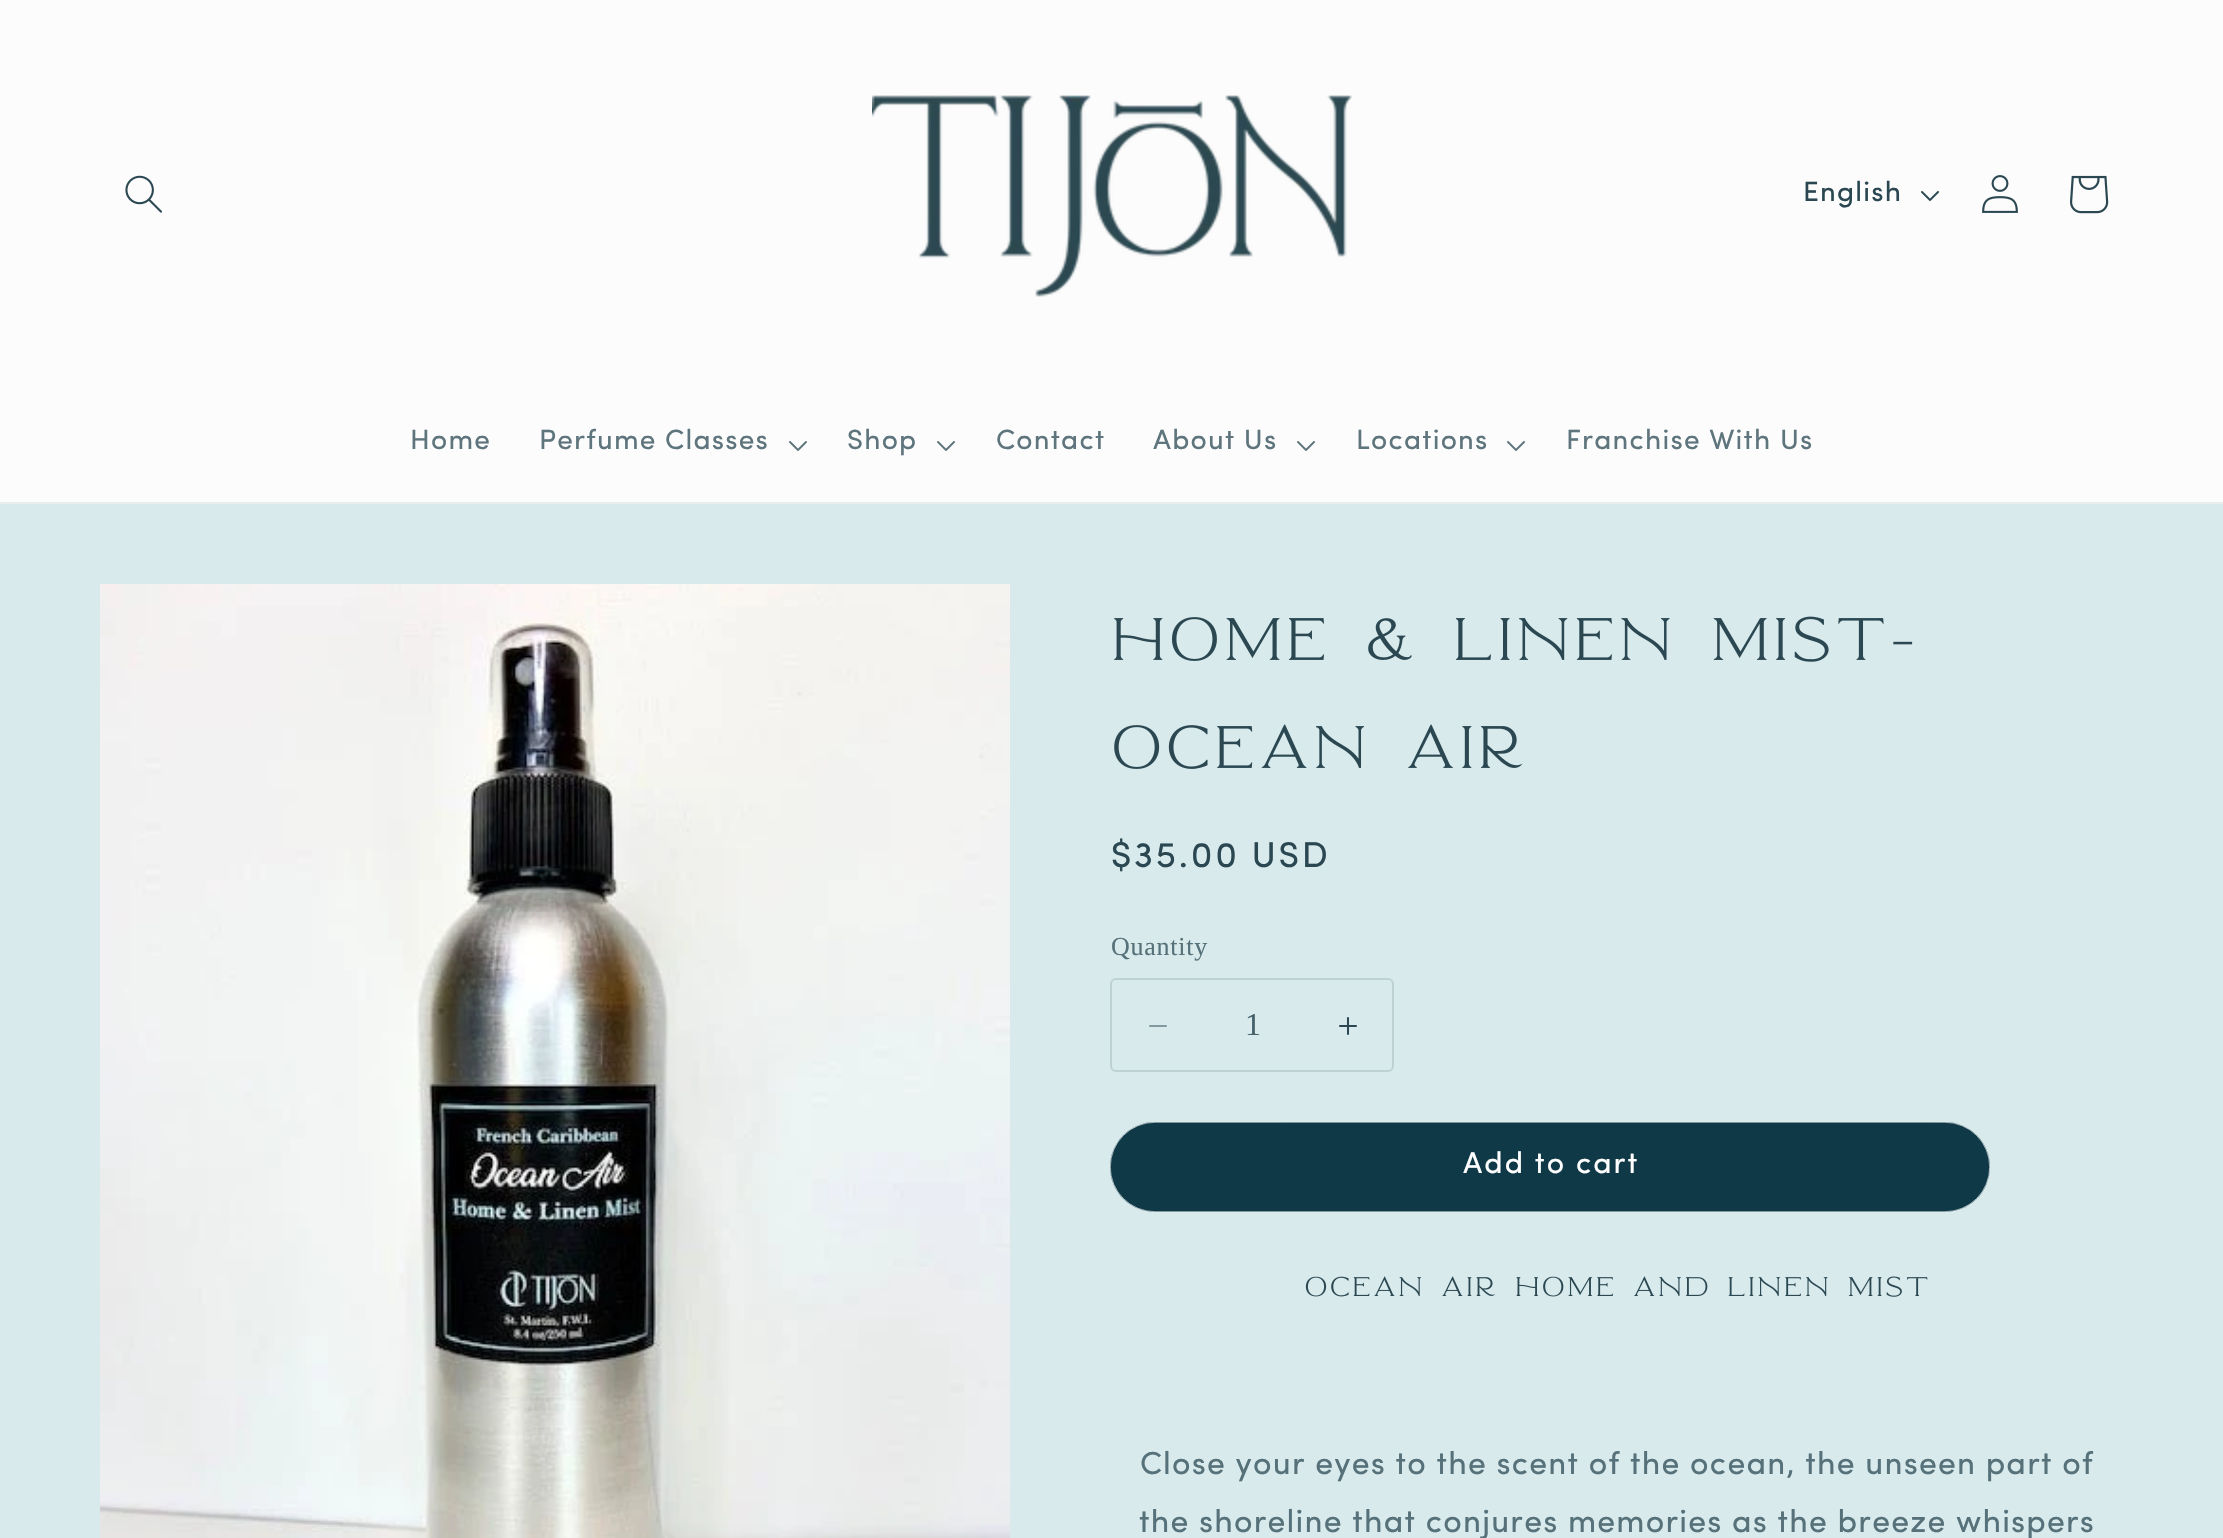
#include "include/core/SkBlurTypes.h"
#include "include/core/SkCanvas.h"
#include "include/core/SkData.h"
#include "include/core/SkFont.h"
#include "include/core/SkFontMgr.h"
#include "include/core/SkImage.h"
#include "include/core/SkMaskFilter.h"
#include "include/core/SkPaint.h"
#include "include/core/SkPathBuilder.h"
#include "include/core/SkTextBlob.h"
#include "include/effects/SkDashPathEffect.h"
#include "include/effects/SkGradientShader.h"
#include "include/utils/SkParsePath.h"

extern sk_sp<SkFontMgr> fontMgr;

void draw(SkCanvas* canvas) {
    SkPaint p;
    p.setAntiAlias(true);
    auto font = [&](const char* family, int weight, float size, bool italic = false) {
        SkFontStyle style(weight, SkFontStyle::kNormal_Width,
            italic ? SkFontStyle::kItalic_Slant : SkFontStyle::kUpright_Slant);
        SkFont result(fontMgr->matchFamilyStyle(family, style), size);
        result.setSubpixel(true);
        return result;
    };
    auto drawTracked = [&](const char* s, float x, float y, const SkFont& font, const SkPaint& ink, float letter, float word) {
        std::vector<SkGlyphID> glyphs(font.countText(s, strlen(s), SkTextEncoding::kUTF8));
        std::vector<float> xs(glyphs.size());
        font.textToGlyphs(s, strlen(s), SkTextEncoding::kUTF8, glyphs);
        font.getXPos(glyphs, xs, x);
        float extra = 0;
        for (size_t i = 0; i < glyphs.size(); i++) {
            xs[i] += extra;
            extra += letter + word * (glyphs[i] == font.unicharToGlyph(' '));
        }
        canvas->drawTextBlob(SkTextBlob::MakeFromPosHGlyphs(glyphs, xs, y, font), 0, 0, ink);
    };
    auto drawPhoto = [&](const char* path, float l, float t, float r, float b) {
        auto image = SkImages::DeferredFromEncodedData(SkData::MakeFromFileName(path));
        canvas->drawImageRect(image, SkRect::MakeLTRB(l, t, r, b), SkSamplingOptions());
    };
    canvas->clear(0xFFFCFCFC);
    p.setColor(0xFFEBEEEE);
    canvas->drawRect(SkRect::MakeLTRB(0, 502, 2223, 504), p);
    drawPhoto("media/1.png", 125, 175, 162, 213);
    drawPhoto("media/2.png", 872, 95, 1352, 297);
    auto font1 = font("Sofia", 400, 28);
    p.setColor(0xFF2B4852);
    drawTracked("English", 1803, 201, font1, p, 1.2f, 0);
    drawPhoto("media/3.png", 1921, 191, 1939, 201);
    drawPhoto("media/4.png", 1982, 175, 2018, 213);
    drawPhoto("media/5.png", 2070, 175, 2109, 214);
    p.setColor(0xFF5F757D);
    drawTracked("Home", 410, 449, font1, p, 1.2f, 0);
    drawTracked("Perfume Classes", 539, 449, font1, p, 1.2f, 0);
    drawPhoto("media/6.png", 789, 441, 807, 451);
    drawTracked("Shop", 847, 449, font1, p, 1.2f, 0);
    drawPhoto("media/6.png", 937, 441, 955, 451);
    drawTracked("Contact", 996, 449, font1, p, 1.2f, 0);
    drawTracked("About Us", 1153, 449, font1, p, 1.2f, 0);
    drawPhoto("media/6.png", 1297, 441, 1315, 451);
    drawTracked("Locations", 1356, 449, font1, p, 1.2f, 0);
    drawPhoto("media/6.png", 1507, 441, 1525, 451);
    drawTracked("Franchise With Us", 1566, 449, font1, p, 1.2f, 0);
    p.setColor(0xFFD8EAEC);
    canvas->drawRect(SkRect::MakeLTRB(0, 504, 2223, 1538), p);
    drawPhoto("media/7.png", 100, 584, 1010, 1538);
    drawPhoto("media/8.png", 1114, 616, 1913, 662);
    drawPhoto("media/9.png", 1114, 724, 1523, 769);
    auto font2 = font("Sofia", 400, 36);
    p.setColor(0xFF2B4852);
    drawTracked("$35.00 USD", 1111, 867, font2, p, 2.6f, 0);
    auto font3 = font("Liberation Serif", 400, 26);
    p.setColor(0xFF567179);
    drawTracked("Quantity", 1111, 955, font3, p, 0.75f, 0);
    drawPhoto("media/10.png", 1149, 1025, 1167, 1027);
    drawPhoto("media/11.png", 1339, 1017, 1357, 1035);
    p.setStyle(SkPaint::kStroke_Style);
    p.setStrokeWidth(2);
    p.setColor(0xFFBED2D5);
    canvas->drawRoundRect(SkRect::MakeLTRB(1111, 979, 1393, 1071), 5, 5, p);
    auto font4 = font("Liberation Serif", 400, 32);
    p.setStyle(SkPaint::kFill_Style);
    p.setColor(0xFF456069);
    canvas->drawString("1", 1245, 1035, font4, p);
    p.setColor(0xFF103948);
    canvas->drawRoundRect(SkRect::MakeLTRB(1110, 1122, 1990, 1212), 45, 45, p);
    p.setStyle(SkPaint::kStroke_Style);
    p.setStrokeWidth(0.6f);
    p.setColor(0xFFFFFFFF);
    canvas->drawRoundRect(SkRect::MakeLTRB(1110.3f, 1122.3f, 1989.7f, 1211.7f), 44.7f, 44.7f, p);
    auto font5 = font("Sofia", 400, 30);
    p.setStyle(SkPaint::kFill_Style);
    drawTracked("Add to cart", 1463, 1173, font5, p, 2, 0);
    drawPhoto("media/12.png", 1305, 1276, 1928, 1297);
    auto font6 = font("Sofia", 400, 32);
    p.setColor(0xFF567179);
    drawTracked("Close your eyes to the scent of the ocean, the unseen part of", 1140, 1474, font6, p, 1.2f, 0);
    drawTracked("the shoreline that conjures memories as the breeze whispers", 1139, 1532, font6, p, 1.2f, 0);
}
